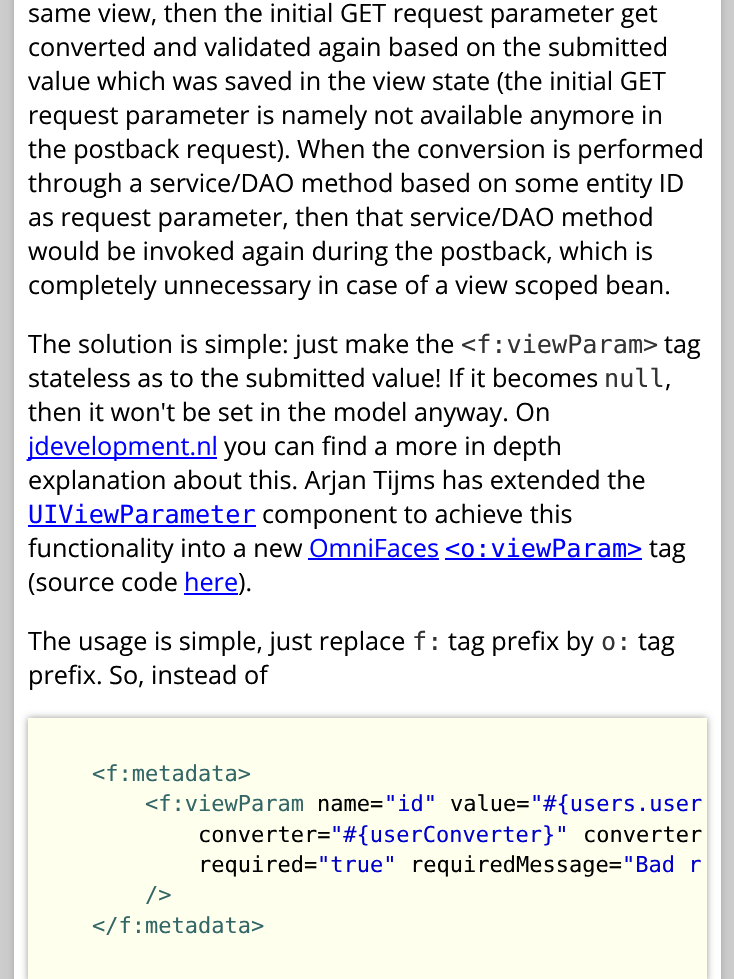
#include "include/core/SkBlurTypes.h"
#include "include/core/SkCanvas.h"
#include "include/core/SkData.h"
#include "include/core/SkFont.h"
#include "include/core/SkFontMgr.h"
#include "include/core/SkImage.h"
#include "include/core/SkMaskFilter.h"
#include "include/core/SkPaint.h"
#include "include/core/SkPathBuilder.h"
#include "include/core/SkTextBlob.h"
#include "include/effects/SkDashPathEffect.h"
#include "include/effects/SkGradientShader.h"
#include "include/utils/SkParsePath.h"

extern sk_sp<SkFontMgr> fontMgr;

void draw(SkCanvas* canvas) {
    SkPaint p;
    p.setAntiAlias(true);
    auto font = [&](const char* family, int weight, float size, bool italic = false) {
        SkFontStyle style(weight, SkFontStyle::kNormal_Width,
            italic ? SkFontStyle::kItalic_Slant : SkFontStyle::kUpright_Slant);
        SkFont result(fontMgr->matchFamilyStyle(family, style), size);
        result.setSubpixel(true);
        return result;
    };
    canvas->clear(0xFFCCCCCC);
    p.setColor(0x33000000);
    p.setMaskFilter(SkMaskFilter::MakeBlur(kNormal_SkBlurStyle, 3.5f));
    canvas->drawRect(SkRect::MakeLTRB(14, -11, 721, 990), p);
    p.setMaskFilter(nullptr);
    p.setColor(0xFFFFFFFF);
    canvas->drawRect(SkRect::MakeLTRB(14, 0, 721, 979), p);
    auto font1 = font("Open Sans", 400, 25.2f);
    p.setColor(0xFF000000);
    {
        const struct { const char* s; float x, y; } items[] = {
            {"same view, then the initial GET request parameter get", 28, 22},
            {"converted and validated again based on the submitted", 28, 56},
            {"value which was saved in the view state (the initial GET", 28, 90},
            {"request parameter is namely not available anymore in", 28, 124},
            {"the postback request). When the conversion is performed", 28, 158},
            {"through a service/DAO method based on some entity ID", 28, 192},
            {"as request parameter, then that service/DAO method", 28, 226},
            {"would be invoked again during the postback, which is", 28, 260},
            {"completely unnecessary in case of a view scoped bean.", 28, 294},
            {"The solution is simple: just make the", 28, 353},
        };
        for (auto [s, x, y] : items) {
            canvas->drawString(s, x, y, font1, p);
        }
    }
    auto font2 = font("DejaVu Sans Mono", 400, 25.2f);
    p.setColor(0xFF333333);
    canvas->drawString("<f:viewParam>", 461, 353, font2, p);
    p.setColor(0xFF000000);
    canvas->drawString("tag", 664, 353, font1, p);
    canvas->drawString("stateless as to the submitted value! If it becomes", 28, 387, font1, p);
    p.setColor(0xFF333333);
    canvas->drawString("null", 604, 387, font2, p);
    p.setColor(0xFF000000);
    canvas->drawString(",", 665, 387, font1, p);
    canvas->drawString("then it won't be set in the model anyway. On", 28, 421, font1, p);
    p.setColor(0xFF0000FF);
    canvas->drawRect(SkRect::MakeLTRB(28, 457, 217, 459), p);
    canvas->drawString("jdevelopment.nl", 28, 455, font1, p);
    p.setColor(0xFF000000);
    canvas->drawString("you can find a more in depth", 224, 455, font1, p);
    canvas->drawString("explanation about this. Arjan Tijms has extended the", 28, 489, font1, p);
    p.setColor(0xFF0000FF);
    canvas->drawString("UIViewParameter", 28, 523, font2, p);
    canvas->drawRect(SkRect::MakeLTRB(28, 525, 256, 527), p);
    p.setColor(0xFF000000);
    canvas->drawString("component to achieve this", 262, 523, font1, p);
    canvas->drawString("functionality into a new", 28, 557, font1, p);
    p.setColor(0xFF0000FF);
    canvas->drawString("OmniFaces", 309, 557, font1, p);
    canvas->drawRect(SkRect::MakeLTRB(308, 558, 439, 560), p);
    canvas->drawString("<o:viewParam>", 445, 557, font2, p);
    canvas->drawRect(SkRect::MakeLTRB(445, 558, 642, 560), p);
    p.setColor(0xFF000000);
    canvas->drawString("tag", 649, 557, font1, p);
    canvas->drawString("(source code", 28, 591, font1, p);
    p.setColor(0xFF0000FF);
    canvas->drawString("here", 184, 591, font1, p);
    canvas->drawRect(SkRect::MakeLTRB(184, 593, 238, 595), p);
    p.setColor(0xFF000000);
    canvas->drawString(").", 238, 591, font1, p);
    canvas->drawString("The usage is simple, just replace", 28, 650, font1, p);
    p.setColor(0xFF333333);
    canvas->drawString("f:", 412, 650, font2, p);
    p.setColor(0xFF000000);
    canvas->drawString("tag prefix by", 448, 650, font1, p);
    p.setColor(0xFF333333);
    canvas->drawString("o:", 601, 650, font2, p);
    p.setColor(0xFF000000);
    canvas->drawString("tag", 638, 650, font1, p);
    canvas->drawString("prefix. So, instead of", 28, 684, font1, p);
    p.setColor(0x66000000);
    p.setMaskFilter(SkMaskFilter::MakeBlur(kNormal_SkBlurStyle, 3.5f));
    canvas->drawRect(SkRect::MakeLTRB(28, 718, 707, 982), p);
    p.setMaskFilter(nullptr);
    p.setColor(0xFFFFFFEE);
    canvas->drawRect(SkRect::MakeLTRB(28, 718, 707, 979), p);
    auto font3 = font("DejaVu Sans Mono", 400, 22);
    p.setColor(0xFF336666);
    canvas->drawString("<f:metadata>", 92, 781, font3, p);
    canvas->drawString("<f:viewParam", 145, 811, font3, p);
    p.setColor(0xFF000000);
    canvas->drawString("name=", 317, 811, font3, p);
    p.setColor(0xFF0000CC);
    canvas->drawString("\"id\"", 384, 811, font3, p);
    p.setColor(0xFF000000);
    canvas->drawString("value=", 450, 811, font3, p);
    p.setColor(0xFF0000CC);
    canvas->drawString("\"#{users.user", 530, 811, font3, p);
    p.setColor(0xFF000000);
    canvas->drawString("converter=", 198, 842, font3, p);
    p.setColor(0xFF0000CC);
    canvas->drawString("\"#{userConverter}\"", 330, 842, font3, p);
    p.setColor(0xFF000000);
    canvas->drawString("converter", 583, 842, font3, p);
    canvas->drawString("required=", 198, 872, font3, p);
    p.setColor(0xFF0000CC);
    canvas->drawString("\"true\"", 317, 872, font3, p);
    p.setColor(0xFF000000);
    canvas->drawString("requiredMessage=", 410, 872, font3, p);
    p.setColor(0xFF0000CC);
    canvas->drawString("\"Bad r", 622, 872, font3, p);
    p.setColor(0xFF336666);
    canvas->drawString("/>", 145, 902, font3, p);
    canvas->drawString("</f:metadata>", 92, 933, font3, p);
}
